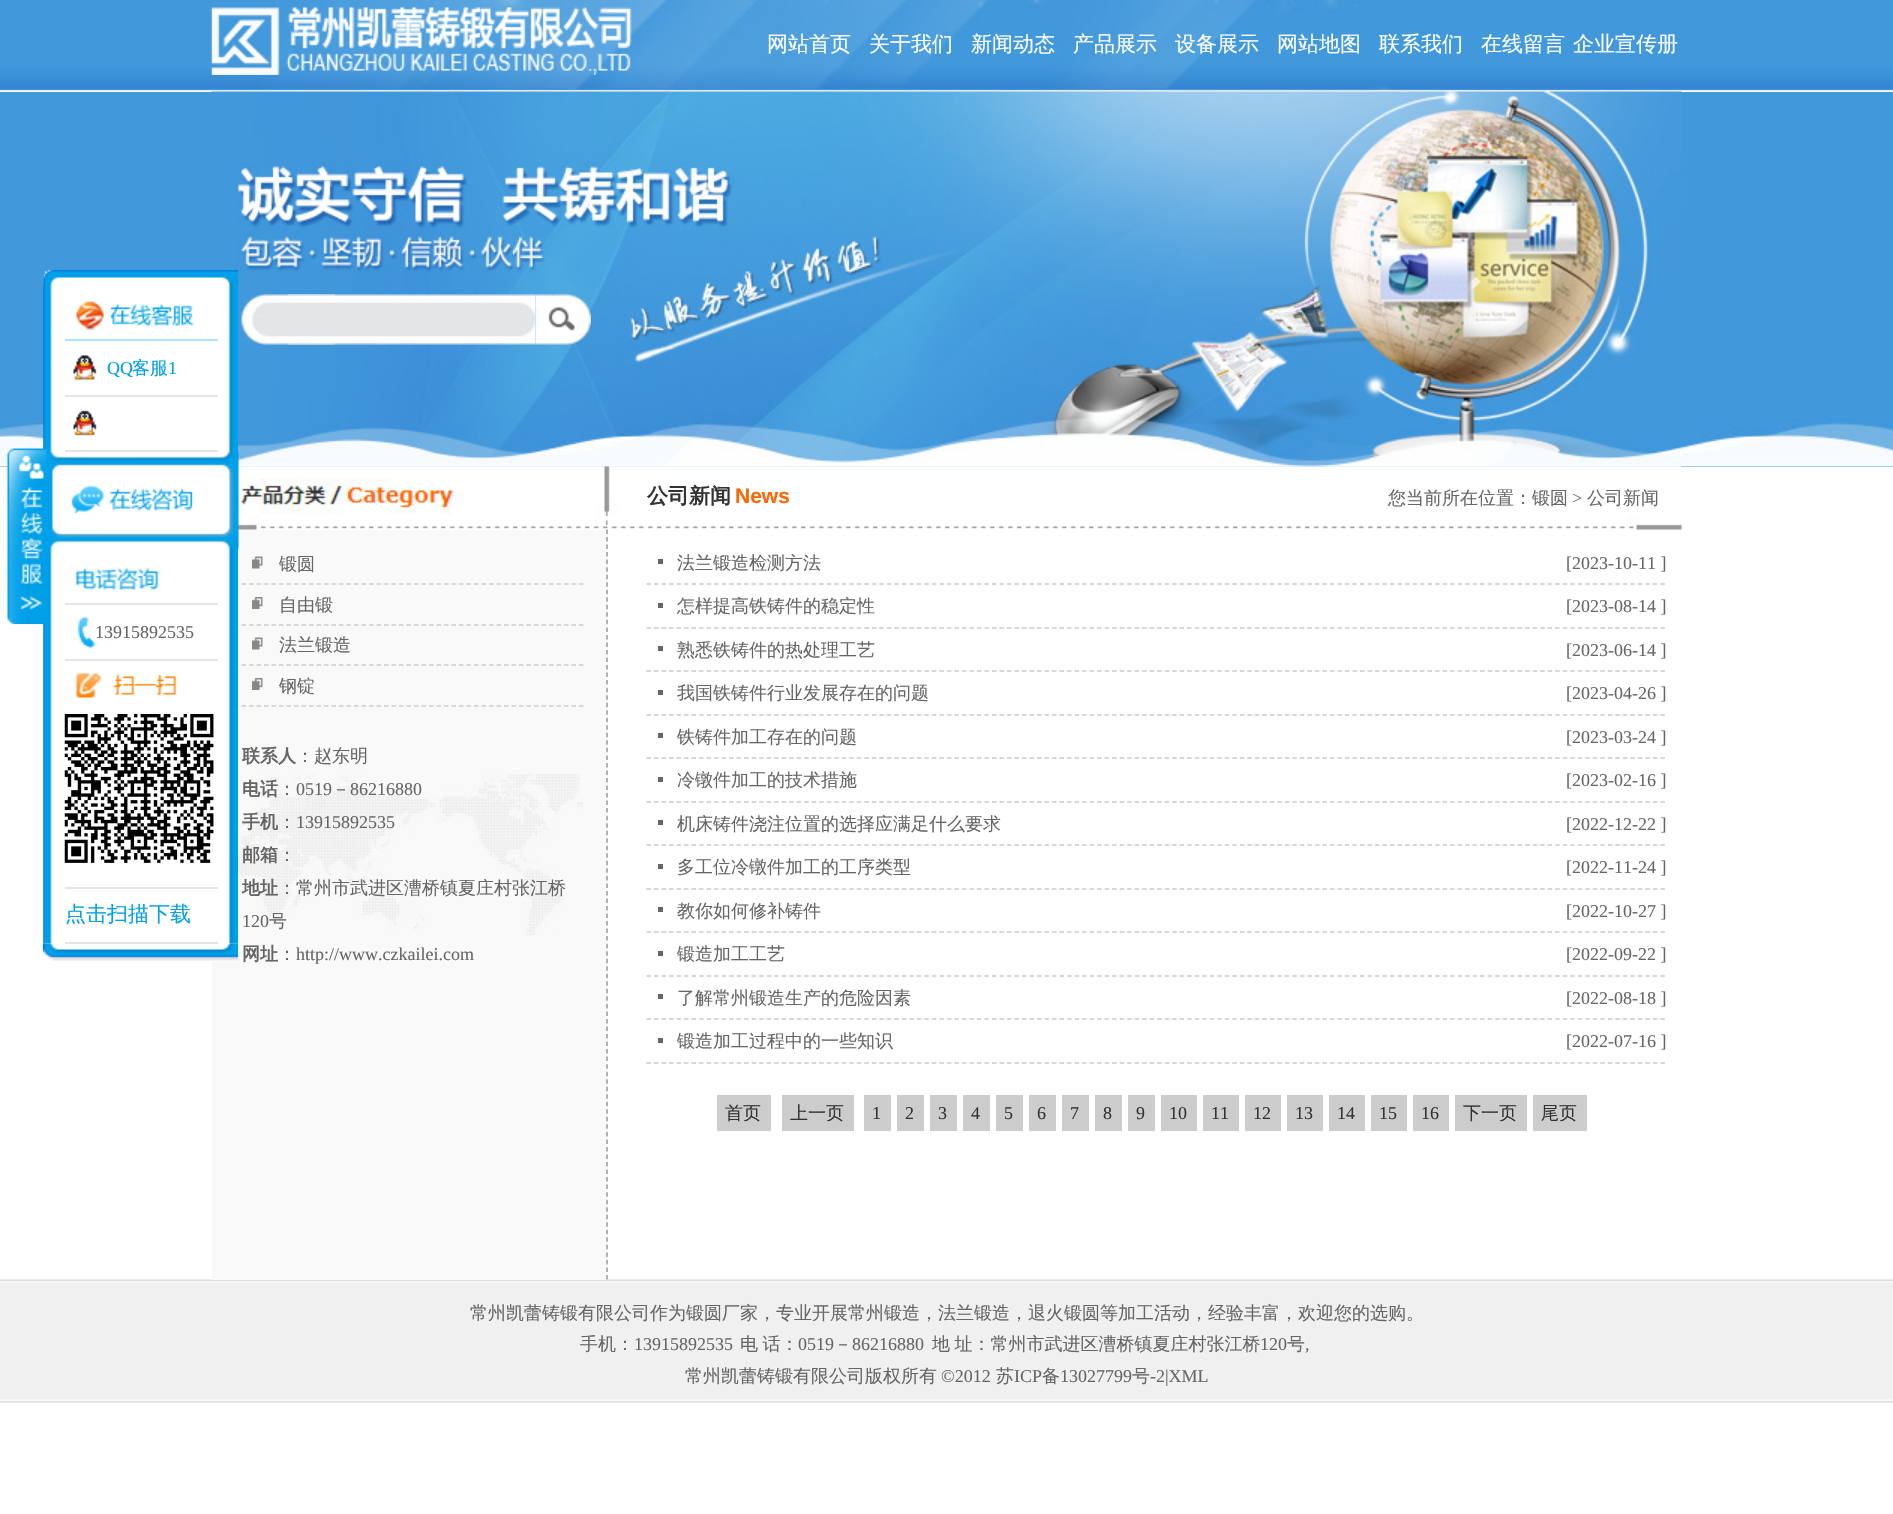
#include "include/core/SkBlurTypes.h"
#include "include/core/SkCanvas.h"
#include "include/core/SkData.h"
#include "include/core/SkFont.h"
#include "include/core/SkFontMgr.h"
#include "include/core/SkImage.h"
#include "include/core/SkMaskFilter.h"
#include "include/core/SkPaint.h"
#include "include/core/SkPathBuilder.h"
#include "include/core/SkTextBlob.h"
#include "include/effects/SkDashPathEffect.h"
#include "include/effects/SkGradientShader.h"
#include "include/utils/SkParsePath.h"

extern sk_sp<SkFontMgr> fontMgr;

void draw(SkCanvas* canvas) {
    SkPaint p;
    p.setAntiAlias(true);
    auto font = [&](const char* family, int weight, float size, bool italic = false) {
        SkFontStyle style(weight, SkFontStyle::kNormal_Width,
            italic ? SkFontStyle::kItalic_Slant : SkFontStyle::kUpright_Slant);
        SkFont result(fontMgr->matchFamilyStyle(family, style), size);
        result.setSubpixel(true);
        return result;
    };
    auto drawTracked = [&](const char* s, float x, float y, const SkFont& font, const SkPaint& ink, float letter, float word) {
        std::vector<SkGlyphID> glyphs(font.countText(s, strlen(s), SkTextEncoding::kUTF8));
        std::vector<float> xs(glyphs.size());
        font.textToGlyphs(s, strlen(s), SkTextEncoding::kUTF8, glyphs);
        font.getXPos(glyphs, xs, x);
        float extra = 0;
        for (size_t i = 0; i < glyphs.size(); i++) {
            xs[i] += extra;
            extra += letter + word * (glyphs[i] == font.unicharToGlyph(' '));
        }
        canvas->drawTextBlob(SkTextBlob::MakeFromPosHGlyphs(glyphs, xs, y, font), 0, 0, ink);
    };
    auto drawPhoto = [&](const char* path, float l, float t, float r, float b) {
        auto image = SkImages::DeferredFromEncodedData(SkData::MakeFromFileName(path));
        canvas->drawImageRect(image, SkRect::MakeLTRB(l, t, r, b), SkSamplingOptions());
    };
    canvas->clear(0xFFFFFFFF);
    drawPhoto("media/1.png", 0, 0, 1893, 91);
    drawPhoto("media/2.png", 262, 0, 1392, 92);
    drawPhoto("media/3.png", 211, 7, 632, 75);
    auto font1 = font("WenQuanYi Zen Hei", 500, 21);
    p.setColor(0xFFFFFFFF);
    {
        const struct { const char* s; float x, y; } items[] = {
            {"网站首页", 767, 51},
            {"关于我们", 869, 51},
            {"新闻动态", 971, 51},
            {"产品展示", 1073, 51},
            {"设备展示", 1175, 51},
            {"网站地图", 1277, 51},
            {"联系我们", 1379, 51},
            {"在线留言", 1481, 51},
            {"企业宣传册", 1573, 51},
        };
        for (auto [s, x, y] : items) {
            canvas->drawString(s, x, y, font1, p);
        }
    }
    p.setColor(0xFF4198DB);
    canvas->drawRect(SkRect::MakeLTRB(0, 92, 1893, 467), p);
    drawPhoto("media/4.png", 0, 417, 1893, 467);
    drawPhoto("media/5.png", 211, 91, 1682, 467);
    drawPhoto("media/6.png", 241, 294, 536, 345);
    drawPhoto("media/7.png", 535, 294, 591, 345);
    drawPhoto("media/25.png", 0, 1279, 1893, 1403);
    p.setColor(0xFFF9F9F9);
    canvas->drawRect(SkRect::MakeLTRB(212, 530, 608, 1280), p);
    drawPhoto("media/9.png", 43, 943, 238, 961);
    p.setStyle(SkPaint::kStroke_Style);
    p.setStrokeWidth(1.5f);
    p.setColor(0xFFCCCCCC);
    p.setPathEffect(SkDashPathEffect::Make({{4.5f, 3}}, 0));
    canvas->drawPath(SkPathBuilder().moveTo(234, 584).lineTo(583.5f, 584).detach(), p);
    p.setPathEffect(nullptr);
    p.setPathEffect(SkDashPathEffect::Make({{4.5f, 3}}, 0));
    canvas->drawPath(SkPathBuilder().moveTo(234, 625).lineTo(583.5f, 625).detach(), p);
    p.setPathEffect(nullptr);
    p.setPathEffect(SkDashPathEffect::Make({{4.5f, 3}}, 0));
    canvas->drawPath(SkPathBuilder().moveTo(234, 665).lineTo(583.5f, 665).detach(), p);
    p.setPathEffect(nullptr);
    p.setPathEffect(SkDashPathEffect::Make({{4.5f, 3}}, 0));
    canvas->drawPath(SkPathBuilder().moveTo(234, 706).lineTo(583.5f, 706).detach(), p);
    p.setPathEffect(nullptr);
    drawPhoto("media/11.png", 43, 285, 238, 944);
    drawPhoto("media/21.png", 238, 466, 1682, 530);
    drawPhoto("media/15.png", 46, 451, 239, 550);
    drawPhoto("media/8.png", 7, 448, 47, 624);
    drawPhoto("media/10.png", 43, 270, 238, 285);
    p.setStyle(SkPaint::kFill_Style);
    p.setColor(0xFFACE5F9);
    canvas->drawRect(SkRect::MakeLTRB(65, 339, 218, 341), p);
    drawPhoto("media/12.png", 76, 301, 194, 331);
    p.setColor(0xFFE6E5E4);
    canvas->drawRect(SkRect::MakeLTRB(65, 395, 218, 397), p);
    drawPhoto("media/13.png", 73, 355, 97, 380);
    auto font2 = font("Liberation Serif", 400, 18);
    p.setColor(0xFF00A0E9);
    canvas->drawString("QQ", 107, 374, font2, p);
    auto font3 = font("WenQuanYi Zen Hei", 500, 18);
    canvas->drawString("客服", 132, 374, font3, p);
    canvas->drawString("1", 168, 374, font2, p);
    p.setColor(0xFFE6E5E4);
    canvas->drawRect(SkRect::MakeLTRB(65, 450, 218, 452), p);
    drawPhoto("media/14.png", 73, 410, 97, 436);
    drawPhoto("media/16.png", 51, 463, 234, 538);
    canvas->drawRect(SkRect::MakeLTRB(65, 603, 218, 605), p);
    drawPhoto("media/17.png", 75, 568, 159, 590);
    canvas->drawRect(SkRect::MakeLTRB(65, 659, 218, 661), p);
    drawPhoto("media/18.png", 77, 616, 96, 649);
    p.setColor(0xFF666666);
    canvas->drawString("13915892535", 95, 638, font2, p);
    drawPhoto("media/19.png", 75, 673, 177, 698);
    p.setColor(0xFFE6E5E4);
    canvas->drawRect(SkRect::MakeLTRB(65, 887, 218, 889), p);
    drawPhoto("media/20.png", 64, 714, 214, 863);
    canvas->drawRect(SkRect::MakeLTRB(65, 942, 218, 944), p);
    p.setColor(0xFF00A0E9);
    canvas->drawString("点击扫描下载", 65, 921, font1, p);
    p.setStyle(SkPaint::kStroke_Style);
    p.setColor(0xFF999999);
    p.setPathEffect(SkDashPathEffect::Make({{4.5f, 3.03f}}, 0));
    canvas->drawPath(SkPathBuilder().moveTo(607, 529.5f).lineTo(607, 1279.5f).detach(), p);
    p.setPathEffect(nullptr);
    drawPhoto("media/22.png", 252, 556, 263, 569);
    p.setStyle(SkPaint::kFill_Style);
    p.setColor(0xFF666666);
    canvas->drawString("锻圆", 279, 570, font3, p);
    drawPhoto("media/23.png", 252, 597, 263, 609);
    canvas->drawString("自由锻", 279, 611, font3, p);
    drawPhoto("media/22.png", 252, 637, 263, 650);
    canvas->drawString("法兰锻造", 279, 651, font3, p);
    drawPhoto("media/23.png", 252, 678, 263, 690);
    canvas->drawString("钢锭", 279, 692, font3, p);
    drawPhoto("media/24.png", 238, 774, 584, 936);
    auto font4 = font("WenQuanYi Zen Hei", 700, 18);
    canvas->drawString("联系人", 242, 762, font4, p);
    canvas->drawString("：赵东明", 296, 762, font3, p);
    canvas->drawString("电话", 242, 795, font4, p);
    canvas->drawString("：", 278, 795, font3, p);
    canvas->drawString("0519", 296, 795, font2, p);
    canvas->drawString("－", 332, 795, font3, p);
    canvas->drawString("86216880", 350, 795, font2, p);
    canvas->drawString("手机", 242, 828, font4, p);
    canvas->drawString("：", 278, 828, font3, p);
    canvas->drawString("13915892535", 296, 828, font2, p);
    canvas->drawString("邮箱", 242, 861, font4, p);
    canvas->drawString("：", 278, 861, font3, p);
    canvas->drawString("地址", 242, 894, font4, p);
    canvas->drawString("：常州市武进区漕桥镇夏庄村张江桥", 278, 894, font3, p);
    canvas->drawString("120", 242, 927, font2, p);
    canvas->drawString("号", 269, 927, font3, p);
    canvas->drawString("网址", 242, 960, font4, p);
    canvas->drawString("：", 278, 960, font3, p);
    canvas->drawString("http://www.czkailei.com", 296, 960, font2, p);
    auto font5 = font("WenQuanYi Zen Hei", 700, 21);
    p.setColor(0xFF333333);
    canvas->drawString("公司新闻", 647, 503, font5, p);
    auto font6 = font("Liberation Sans", 700, 21);
    p.setColor(0xFFFF6600);
    canvas->drawString("News", 735, 503, font6, p);
    p.setColor(0xFF666666);
    canvas->drawString("您当前所在位置：锻圆", 1388, 504, font3, p);
    canvas->drawString(">", 1572, 504, font2, p);
    canvas->drawString("公司新闻", 1587, 504, font3, p);
    p.setStyle(SkPaint::kStroke_Style);
    p.setColor(0xFFCCCCCC);
    p.setPathEffect(SkDashPathEffect::Make({{4.5f, 3.01f}}, 0));
    canvas->drawPath(SkPathBuilder().moveTo(646.5f, 584).lineTo(1666.5f, 584).detach(), p);
    p.setPathEffect(nullptr);
    p.setStyle(SkPaint::kFill_Style);
    p.setColor(0xFF666666);
    canvas->drawRect(SkRect::MakeLTRB(658, 559, 663, 564), p);
    canvas->drawString("法兰锻造检测方法", 677, 569, font3, p);
    canvas->drawString("[2023-10-11 ]", 1566, 569, font2, p);
    p.setStyle(SkPaint::kStroke_Style);
    p.setColor(0xFFCCCCCC);
    p.setPathEffect(SkDashPathEffect::Make({{4.5f, 3.01f}}, 0));
    canvas->drawPath(SkPathBuilder().moveTo(646.5f, 628).lineTo(1666.5f, 628).detach(), p);
    p.setPathEffect(nullptr);
    p.setStyle(SkPaint::kFill_Style);
    p.setColor(0xFF666666);
    canvas->drawRect(SkRect::MakeLTRB(658, 603, 663, 608), p);
    canvas->drawString("怎样提高铁铸件的稳定性", 677, 612, font3, p);
    canvas->drawString("[2023-08-14 ]", 1566, 612, font2, p);
    p.setStyle(SkPaint::kStroke_Style);
    p.setColor(0xFFCCCCCC);
    p.setPathEffect(SkDashPathEffect::Make({{4.5f, 3.01f}}, 0));
    canvas->drawPath(SkPathBuilder().moveTo(646.5f, 671).lineTo(1666.5f, 671).detach(), p);
    p.setPathEffect(nullptr);
    p.setStyle(SkPaint::kFill_Style);
    p.setColor(0xFF666666);
    canvas->drawRect(SkRect::MakeLTRB(658, 646, 663, 651), p);
    canvas->drawString("熟悉铁铸件的热处理工艺", 677, 656, font3, p);
    canvas->drawString("[2023-06-14 ]", 1566, 656, font2, p);
    p.setStyle(SkPaint::kStroke_Style);
    p.setColor(0xFFCCCCCC);
    p.setPathEffect(SkDashPathEffect::Make({{4.5f, 3.01f}}, 0));
    canvas->drawPath(SkPathBuilder().moveTo(646.5f, 715).lineTo(1666.5f, 715).detach(), p);
    p.setPathEffect(nullptr);
    p.setStyle(SkPaint::kFill_Style);
    p.setColor(0xFF666666);
    canvas->drawRect(SkRect::MakeLTRB(658, 690, 663, 695), p);
    canvas->drawString("我国铁铸件行业发展存在的问题", 677, 699, font3, p);
    canvas->drawString("[2023-04-26 ]", 1566, 699, font2, p);
    p.setStyle(SkPaint::kStroke_Style);
    p.setColor(0xFFCCCCCC);
    p.setPathEffect(SkDashPathEffect::Make({{4.5f, 3.01f}}, 0));
    canvas->drawPath(SkPathBuilder().moveTo(646.5f, 758).lineTo(1666.5f, 758).detach(), p);
    p.setPathEffect(nullptr);
    p.setStyle(SkPaint::kFill_Style);
    p.setColor(0xFF666666);
    canvas->drawRect(SkRect::MakeLTRB(658, 733, 663, 738), p);
    canvas->drawString("铁铸件加工存在的问题", 677, 743, font3, p);
    canvas->drawString("[2023-03-24 ]", 1566, 743, font2, p);
    p.setStyle(SkPaint::kStroke_Style);
    p.setColor(0xFFCCCCCC);
    p.setPathEffect(SkDashPathEffect::Make({{4.5f, 3.01f}}, 0));
    canvas->drawPath(SkPathBuilder().moveTo(646.5f, 802).lineTo(1666.5f, 802).detach(), p);
    p.setPathEffect(nullptr);
    p.setStyle(SkPaint::kFill_Style);
    p.setColor(0xFF666666);
    canvas->drawRect(SkRect::MakeLTRB(658, 777, 663, 782), p);
    canvas->drawString("冷镦件加工的技术措施", 677, 786, font3, p);
    canvas->drawString("[2023-02-16 ]", 1566, 786, font2, p);
    p.setStyle(SkPaint::kStroke_Style);
    p.setColor(0xFFCCCCCC);
    p.setPathEffect(SkDashPathEffect::Make({{4.5f, 3.01f}}, 0));
    canvas->drawPath(SkPathBuilder().moveTo(646.5f, 845).lineTo(1666.5f, 845).detach(), p);
    p.setPathEffect(nullptr);
    p.setStyle(SkPaint::kFill_Style);
    p.setColor(0xFF666666);
    canvas->drawRect(SkRect::MakeLTRB(658, 820, 663, 825), p);
    canvas->drawString("机床铸件浇注位置的选择应满足什么要求", 677, 830, font3, p);
    canvas->drawString("[2022-12-22 ]", 1566, 830, font2, p);
    p.setStyle(SkPaint::kStroke_Style);
    p.setColor(0xFFCCCCCC);
    p.setPathEffect(SkDashPathEffect::Make({{4.5f, 3.01f}}, 0));
    canvas->drawPath(SkPathBuilder().moveTo(646.5f, 889).lineTo(1666.5f, 889).detach(), p);
    p.setPathEffect(nullptr);
    p.setStyle(SkPaint::kFill_Style);
    p.setColor(0xFF666666);
    canvas->drawRect(SkRect::MakeLTRB(658, 864, 663, 869), p);
    canvas->drawString("多工位冷镦件加工的工序类型", 677, 873, font3, p);
    canvas->drawString("[2022-11-24 ]", 1566, 873, font2, p);
    p.setStyle(SkPaint::kStroke_Style);
    p.setColor(0xFFCCCCCC);
    p.setPathEffect(SkDashPathEffect::Make({{4.5f, 3.01f}}, 0));
    canvas->drawPath(SkPathBuilder().moveTo(646.5f, 932).lineTo(1666.5f, 932).detach(), p);
    p.setPathEffect(nullptr);
    p.setStyle(SkPaint::kFill_Style);
    p.setColor(0xFF666666);
    canvas->drawRect(SkRect::MakeLTRB(658, 907, 663, 912), p);
    canvas->drawString("教你如何修补铸件", 677, 917, font3, p);
    canvas->drawString("[2022-10-27 ]", 1566, 917, font2, p);
    p.setStyle(SkPaint::kStroke_Style);
    p.setColor(0xFFCCCCCC);
    p.setPathEffect(SkDashPathEffect::Make({{4.5f, 3.01f}}, 0));
    canvas->drawPath(SkPathBuilder().moveTo(646.5f, 976).lineTo(1666.5f, 976).detach(), p);
    p.setPathEffect(nullptr);
    p.setStyle(SkPaint::kFill_Style);
    p.setColor(0xFF666666);
    canvas->drawRect(SkRect::MakeLTRB(658, 951, 663, 956), p);
    canvas->drawString("锻造加工工艺", 677, 960, font3, p);
    canvas->drawString("[2022-09-22 ]", 1566, 960, font2, p);
    p.setStyle(SkPaint::kStroke_Style);
    p.setColor(0xFFCCCCCC);
    p.setPathEffect(SkDashPathEffect::Make({{4.5f, 3.01f}}, 0));
    canvas->drawPath(SkPathBuilder().moveTo(646.5f, 1019).lineTo(1666.5f, 1019).detach(), p);
    p.setPathEffect(nullptr);
    p.setStyle(SkPaint::kFill_Style);
    p.setColor(0xFF666666);
    canvas->drawRect(SkRect::MakeLTRB(658, 994, 663, 999), p);
    canvas->drawString("了解常州锻造生产的危险因素", 677, 1004, font3, p);
    canvas->drawString("[2022-08-18 ]", 1566, 1004, font2, p);
    p.setStyle(SkPaint::kStroke_Style);
    p.setColor(0xFFCCCCCC);
    p.setPathEffect(SkDashPathEffect::Make({{4.5f, 3.01f}}, 0));
    canvas->drawPath(SkPathBuilder().moveTo(646.5f, 1063).lineTo(1666.5f, 1063).detach(), p);
    p.setPathEffect(nullptr);
    p.setStyle(SkPaint::kFill_Style);
    p.setColor(0xFF666666);
    canvas->drawRect(SkRect::MakeLTRB(658, 1038, 663, 1043), p);
    canvas->drawString("锻造加工过程中的一些知识", 677, 1047, font3, p);
    canvas->drawString("[2022-07-16 ]", 1566, 1047, font2, p);
    p.setColor(0xFFCCCCCC);
    canvas->drawRect(SkRect::MakeLTRB(717, 1095, 771, 1131), p);
    p.setColor(0xFF333333);
    canvas->drawString("首页", 725, 1119, font3, p);
    p.setColor(0xFFCCCCCC);
    canvas->drawRect(SkRect::MakeLTRB(782, 1095, 854, 1131), p);
    p.setColor(0xFF333333);
    canvas->drawString("上一页", 790, 1119, font3, p);
    p.setColor(0xFFCCCCCC);
    canvas->drawRect(SkRect::MakeLTRB(864, 1095, 891, 1131), p);
    p.setColor(0xFF333333);
    canvas->drawString("1", 872, 1119, font2, p);
    p.setColor(0xFFCCCCCC);
    canvas->drawRect(SkRect::MakeLTRB(897, 1095, 924, 1131), p);
    p.setColor(0xFF333333);
    canvas->drawString("2", 905, 1119, font2, p);
    p.setColor(0xFFCCCCCC);
    canvas->drawRect(SkRect::MakeLTRB(930, 1095, 957, 1131), p);
    p.setColor(0xFF333333);
    canvas->drawString("3", 938, 1119, font2, p);
    p.setColor(0xFFCCCCCC);
    canvas->drawRect(SkRect::MakeLTRB(963, 1095, 990, 1131), p);
    p.setColor(0xFF333333);
    canvas->drawString("4", 971, 1119, font2, p);
    p.setColor(0xFFCCCCCC);
    canvas->drawRect(SkRect::MakeLTRB(996, 1095, 1023, 1131), p);
    p.setColor(0xFF333333);
    canvas->drawString("5", 1004, 1119, font2, p);
    p.setColor(0xFFCCCCCC);
    canvas->drawRect(SkRect::MakeLTRB(1029, 1095, 1056, 1131), p);
    p.setColor(0xFF333333);
    canvas->drawString("6", 1037, 1119, font2, p);
    p.setColor(0xFFCCCCCC);
    canvas->drawRect(SkRect::MakeLTRB(1062, 1095, 1089, 1131), p);
    p.setColor(0xFF333333);
    canvas->drawString("7", 1070, 1119, font2, p);
    p.setColor(0xFFCCCCCC);
    canvas->drawRect(SkRect::MakeLTRB(1095, 1095, 1122, 1131), p);
    p.setColor(0xFF333333);
    canvas->drawString("8", 1103, 1119, font2, p);
    p.setColor(0xFFCCCCCC);
    canvas->drawRect(SkRect::MakeLTRB(1128, 1095, 1155, 1131), p);
    p.setColor(0xFF333333);
    canvas->drawString("9", 1136, 1119, font2, p);
    p.setColor(0xFFCCCCCC);
    canvas->drawRect(SkRect::MakeLTRB(1161, 1095, 1197, 1131), p);
    p.setColor(0xFF333333);
    canvas->drawString("10", 1169, 1119, font2, p);
    p.setColor(0xFFCCCCCC);
    canvas->drawRect(SkRect::MakeLTRB(1203, 1095, 1239, 1131), p);
    p.setColor(0xFF333333);
    canvas->drawString("11", 1211, 1119, font2, p);
    p.setColor(0xFFCCCCCC);
    canvas->drawRect(SkRect::MakeLTRB(1245, 1095, 1281, 1131), p);
    p.setColor(0xFF333333);
    canvas->drawString("12", 1253, 1119, font2, p);
    p.setColor(0xFFCCCCCC);
    canvas->drawRect(SkRect::MakeLTRB(1287, 1095, 1323, 1131), p);
    p.setColor(0xFF333333);
    canvas->drawString("13", 1295, 1119, font2, p);
    p.setColor(0xFFCCCCCC);
    canvas->drawRect(SkRect::MakeLTRB(1329, 1095, 1365, 1131), p);
    p.setColor(0xFF333333);
    canvas->drawString("14", 1337, 1119, font2, p);
    p.setColor(0xFFCCCCCC);
    canvas->drawRect(SkRect::MakeLTRB(1371, 1095, 1407, 1131), p);
    p.setColor(0xFF333333);
    canvas->drawString("15", 1379, 1119, font2, p);
    p.setColor(0xFFCCCCCC);
    canvas->drawRect(SkRect::MakeLTRB(1413, 1095, 1449, 1131), p);
    p.setColor(0xFF333333);
    canvas->drawString("16", 1421, 1119, font2, p);
    p.setColor(0xFFCCCCCC);
    canvas->drawRect(SkRect::MakeLTRB(1455, 1095, 1527, 1131), p);
    p.setColor(0xFF333333);
    canvas->drawString("下一页", 1463, 1119, font3, p);
    p.setColor(0xFFCCCCCC);
    canvas->drawRect(SkRect::MakeLTRB(1533, 1095, 1587, 1131), p);
    p.setColor(0xFF333333);
    canvas->drawString("尾页", 1541, 1119, font3, p);
    p.setColor(0xFF666666);
    canvas->drawString("常州凯蕾铸锻有限公司作为锻圆厂家，专业开展常州锻造，法兰锻造，退火锻圆等加工活动，经验丰富，欢迎您的选购。", 470, 1319, font3, p);
    canvas->drawString("手机：", 580, 1350, font3, p);
    canvas->drawString("13915892535", 634, 1350, font2, p);
    drawTracked("电 话：", 740, 1350, font3, p, 0, -1);
    canvas->drawString("0519", 798, 1350, font2, p);
    canvas->drawString("－", 834, 1350, font3, p);
    canvas->drawString("86216880", 852, 1350, font2, p);
    drawTracked("地 址：常州市武进区漕桥镇夏庄村张江桥", 932, 1350, font3, p, 0, -1);
    canvas->drawString("120", 1260, 1350, font2, p);
    canvas->drawString("号", 1287, 1350, font3, p);
    canvas->drawString(",", 1305, 1350, font2, p);
    canvas->drawString("常州凯蕾铸锻有限公司版权所有", 685, 1382, font3, p);
    canvas->drawString("©2012", 941, 1382, font2, p);
    canvas->drawString("苏", 996, 1382, font3, p);
    canvas->drawString("ICP", 1014, 1382, font2, p);
    canvas->drawString("备", 1042, 1382, font3, p);
    canvas->drawString("13027799", 1060, 1382, font2, p);
    canvas->drawString("号", 1132, 1382, font3, p);
    canvas->drawString("-2|XML", 1150, 1382, font2, p);
}
